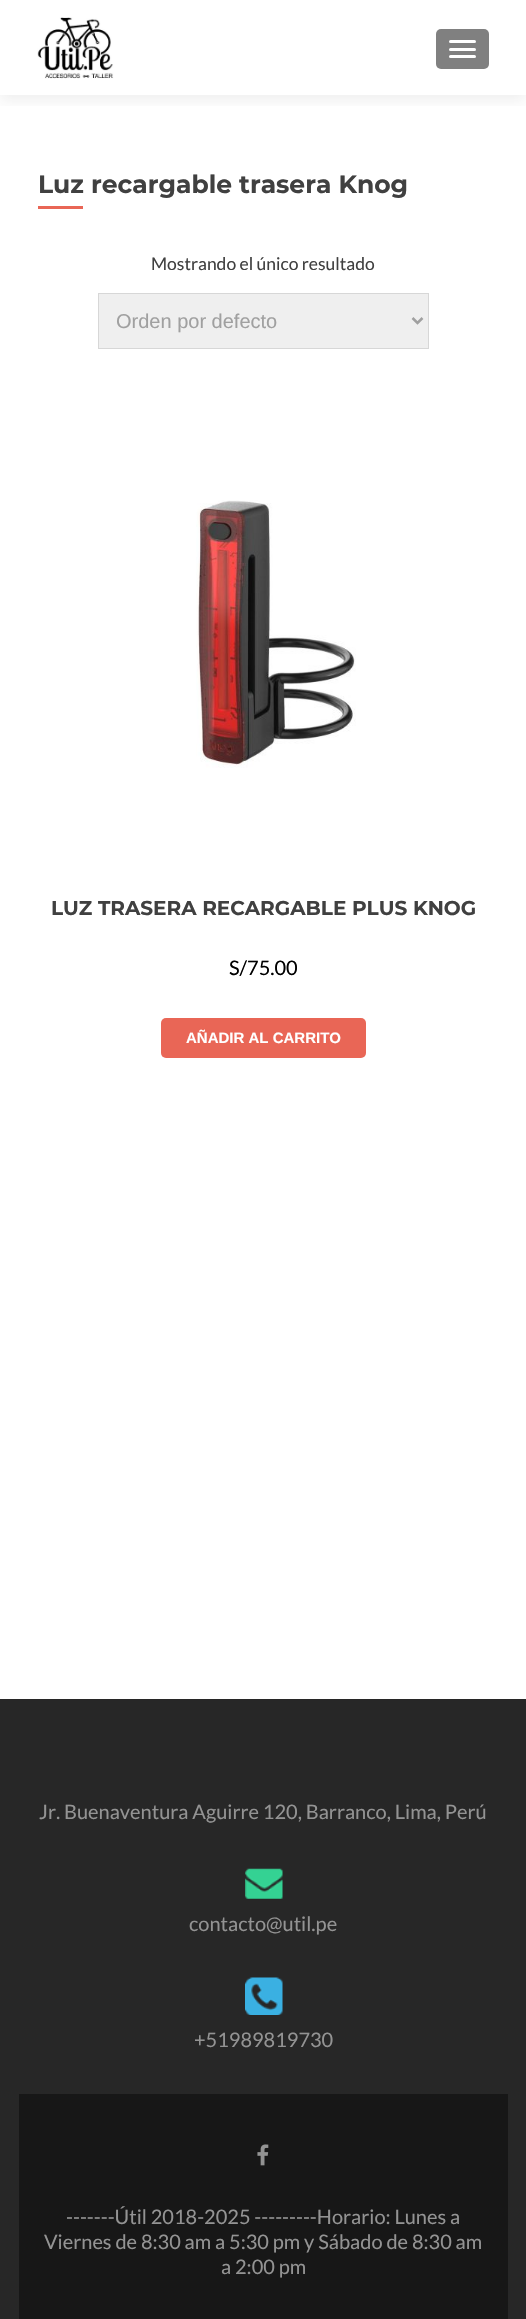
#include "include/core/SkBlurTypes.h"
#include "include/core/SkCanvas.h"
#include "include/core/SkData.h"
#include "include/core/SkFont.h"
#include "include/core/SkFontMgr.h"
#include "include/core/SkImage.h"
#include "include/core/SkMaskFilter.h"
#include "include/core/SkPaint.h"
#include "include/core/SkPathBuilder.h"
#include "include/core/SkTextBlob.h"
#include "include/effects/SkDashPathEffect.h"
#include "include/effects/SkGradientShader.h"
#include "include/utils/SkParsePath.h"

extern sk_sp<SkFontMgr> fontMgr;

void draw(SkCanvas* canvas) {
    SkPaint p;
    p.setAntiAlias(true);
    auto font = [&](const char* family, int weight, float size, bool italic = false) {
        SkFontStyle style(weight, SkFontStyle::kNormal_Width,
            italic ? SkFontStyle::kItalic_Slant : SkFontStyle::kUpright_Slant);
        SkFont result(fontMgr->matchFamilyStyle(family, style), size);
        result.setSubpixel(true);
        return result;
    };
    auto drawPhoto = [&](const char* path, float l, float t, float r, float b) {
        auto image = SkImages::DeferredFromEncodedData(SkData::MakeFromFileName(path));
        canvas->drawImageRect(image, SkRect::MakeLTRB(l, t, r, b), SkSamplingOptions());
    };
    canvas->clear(0xFFFFFFFF);
    canvas->save();
    canvas->clipRect(SkRect::MakeLTRB(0, 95, 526, 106));
    p.setColor(0x14323232);
    p.setMaskFilter(SkMaskFilter::MakeBlur(kNormal_SkBlurStyle, 7));
    canvas->drawRect(SkRect::MakeLTRB(0, 6, 526, 101), p);
    p.setMaskFilter(nullptr);
    canvas->restore();
    drawPhoto("media/1.png", 37, 17, 114, 79);
    p.setColor(0xFF808080);
    canvas->drawRoundRect(SkRect::MakeLTRB(436, 29, 489, 69), 5, 5, p);
    p.setColor(0xFFFFFFFF);
    canvas->drawRoundRect(SkRect::MakeLTRB(449, 40, 476, 43), 1.5f, 1.5f, p);
    canvas->drawRoundRect(SkRect::MakeLTRB(449, 48, 476, 51), 1.5f, 1.5f, p);
    canvas->drawRoundRect(SkRect::MakeLTRB(449, 55, 476, 58), 1.5f, 1.5f, p);
    auto font1 = font("Montserrat", 700, 25);
    p.setColor(0xFF404040);
    canvas->drawString("Luz recargable trasera Knog", 38, 193, font1, p);
    p.setColor(0xFFE96656);
    canvas->drawRect(SkRect::MakeLTRB(38, 206, 83, 209), p);
    auto font2 = font("Lato", 400, 17.5f);
    p.setColor(0xFF404040);
    canvas->drawString("Mostrando el único resultado", 151, 270, font2, p);
    p.setColor(0xFFEFEFEF);
    canvas->drawRect(SkRect::MakeLTRB(98.5f, 293.5f, 428.5f, 348.5f), p);
    p.setStyle(SkPaint::kStroke_Style);
    p.setStrokeWidth(1);
    p.setColor(0xFFD7D7D7);
    canvas->drawRect(SkRect::MakeLTRB(98.5f, 293.5f, 428.5f, 348.5f), p);
    p.setStrokeWidth(2.5f);
    p.setColor(0xFFA0A0A0);
    canvas->drawPath(SkPathBuilder().moveTo(412.5f, 318).lineTo(417.5f, 323).lineTo(422.5f, 318).detach(), p);
    auto font3 = font("Liberation Sans", 400, 20);
    p.setStyle(SkPaint::kFill_Style);
    canvas->drawString("Orden por defecto", 116, 328, font3, p);
    drawPhoto("media/2.png", 196, 500, 356, 768);
    auto font4 = font("Montserrat", 700, 20);
    p.setColor(0xFF404040);
    canvas->drawString("LUZ TRASERA RECARGABLE PLUS KNOG", 51, 915, font4, p);
    auto font5 = font("Lato", 400, 20);
    p.setColor(0xFF000000);
    canvas->drawString("S/75.00", 229, 975, font5, p);
    p.setColor(0xFFE96656);
    canvas->drawRoundRect(SkRect::MakeLTRB(161, 1018, 366, 1058), 5, 5, p);
    auto font6 = font("Liberation Sans", 700, 15);
    p.setColor(0xFFFFFFFF);
    canvas->drawString("AÑADIR AL CARRITO", 186, 1043, font6, p);
    p.setColor(0xFF272727);
    canvas->drawRect(SkRect::MakeLTRB(0, 1699, 526, 2319), p);
    p.setColor(0xFF939393);
    canvas->drawString("Jr. Buenaventura Aguirre 120, Barranco, Lima, Perú", 39, 1819, font5, p);
    drawPhoto("media/3.png", 245, 1868, 283, 1899);
    canvas->drawString("contacto@util.pe", 189, 1931, font5, p);
    drawPhoto("media/4.png", 245, 1977, 283, 2015);
    canvas->drawString("+51989819730", 194, 2047, font5, p);
    p.setColor(0xFF171717);
    canvas->drawRect(SkRect::MakeLTRB(19, 2094, 508, 2319), p);
    drawPhoto("media/5.png", 257, 2144, 269, 2166);
    p.setColor(0xFF939393);
    {
        const struct { const char* s; float x, y; } items[] = {
            {"-------Útil 2018-2025 ---------Horario: Lunes a", 66, 2224},
            {"Viernes de 8:30 am a 5:30 pm y Sábado de 8:30 am", 44, 2249},
            {"a 2:00 pm", 221, 2274},
        };
        for (auto [s, x, y] : items) {
            canvas->drawString(s, x, y, font5, p);
        }
    }
}
